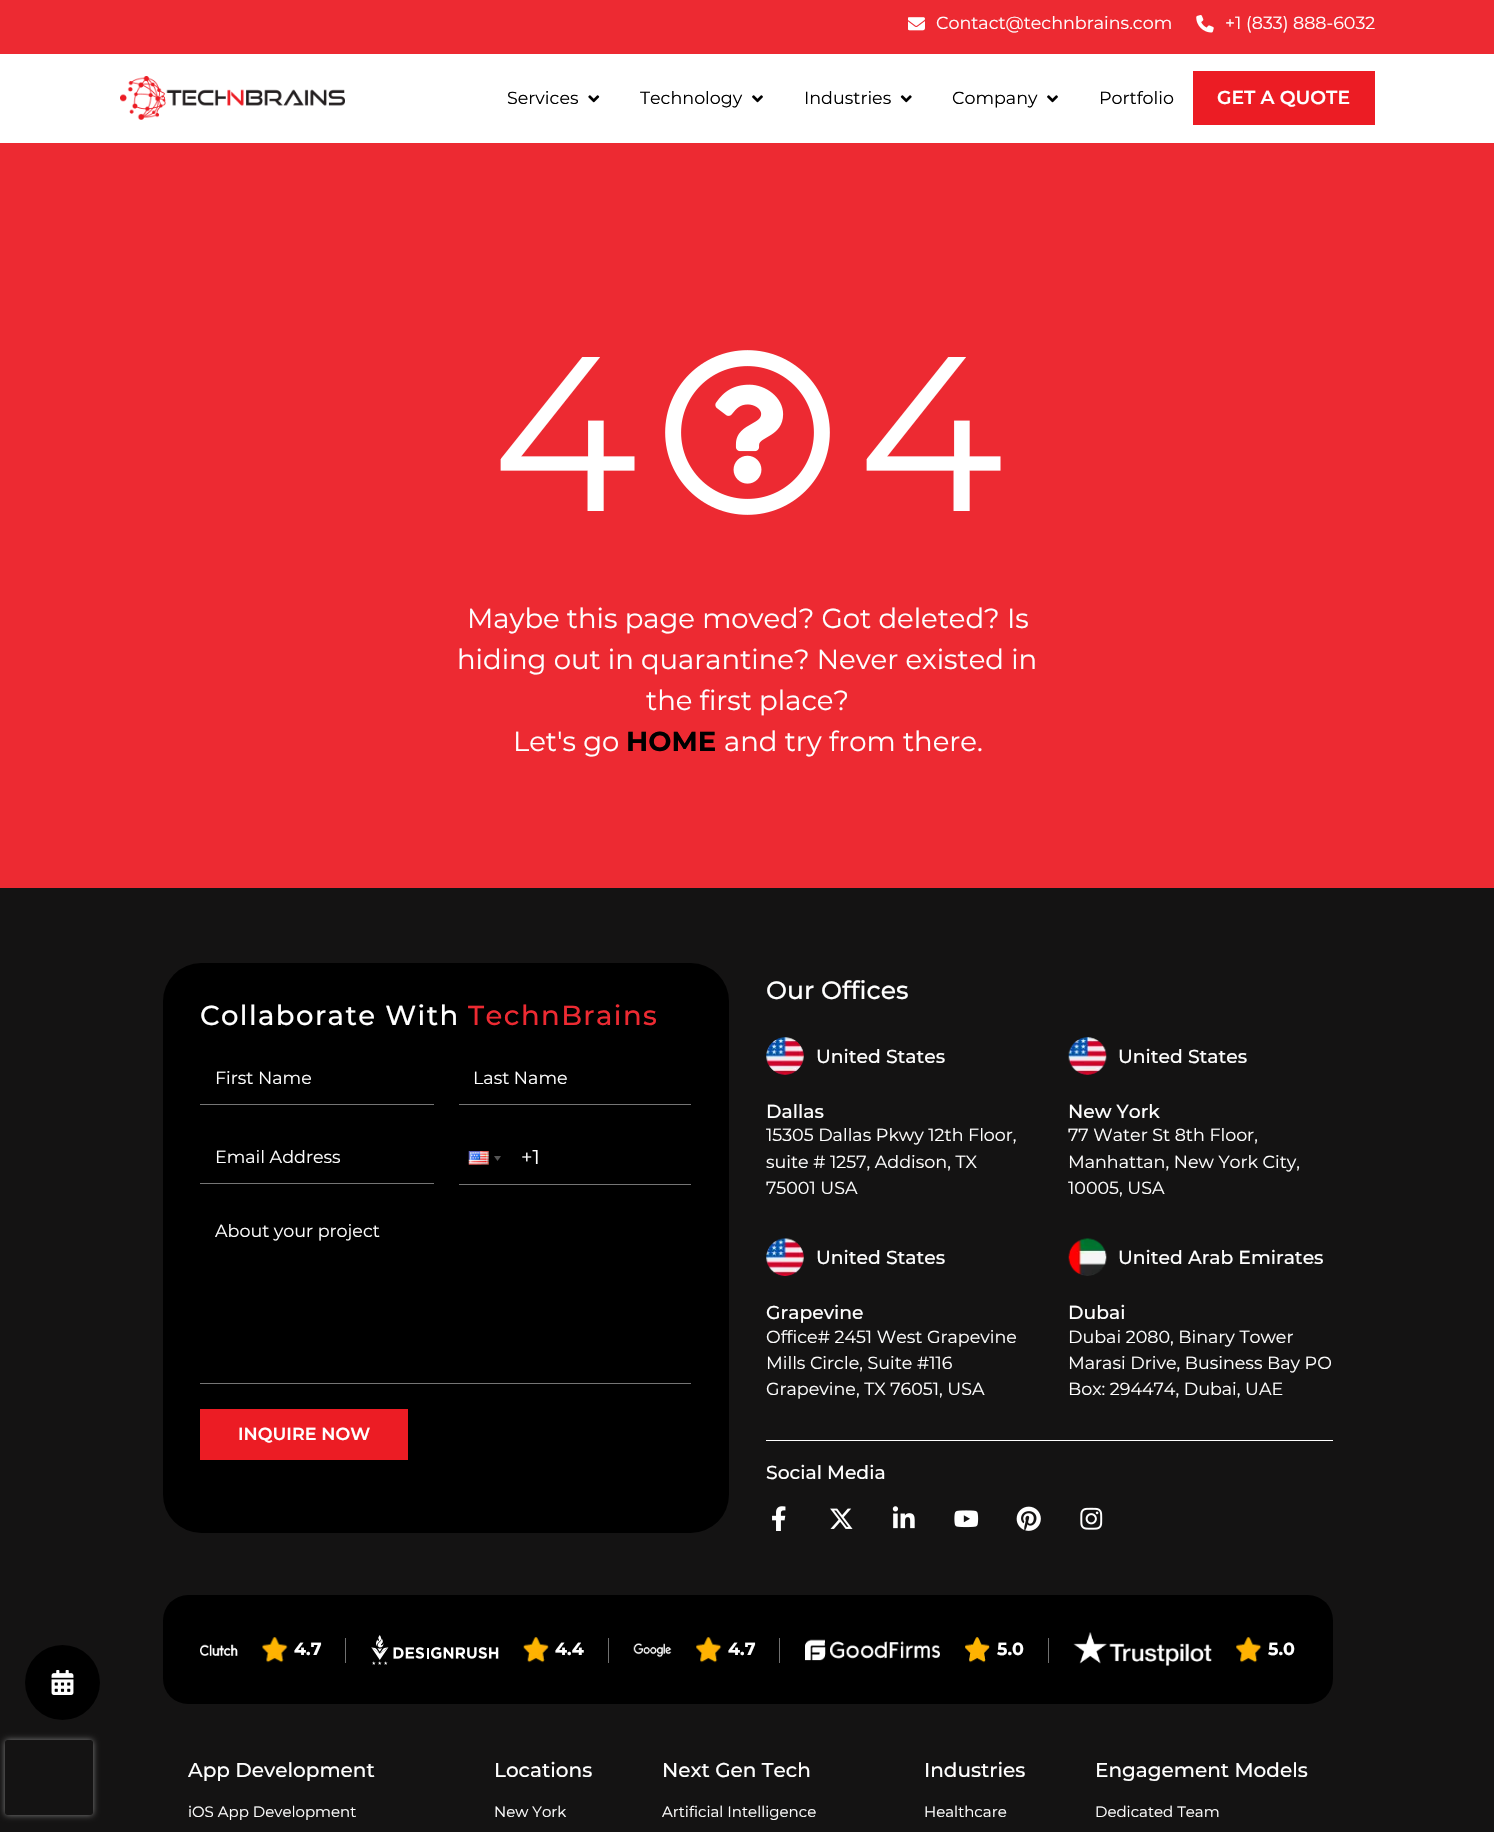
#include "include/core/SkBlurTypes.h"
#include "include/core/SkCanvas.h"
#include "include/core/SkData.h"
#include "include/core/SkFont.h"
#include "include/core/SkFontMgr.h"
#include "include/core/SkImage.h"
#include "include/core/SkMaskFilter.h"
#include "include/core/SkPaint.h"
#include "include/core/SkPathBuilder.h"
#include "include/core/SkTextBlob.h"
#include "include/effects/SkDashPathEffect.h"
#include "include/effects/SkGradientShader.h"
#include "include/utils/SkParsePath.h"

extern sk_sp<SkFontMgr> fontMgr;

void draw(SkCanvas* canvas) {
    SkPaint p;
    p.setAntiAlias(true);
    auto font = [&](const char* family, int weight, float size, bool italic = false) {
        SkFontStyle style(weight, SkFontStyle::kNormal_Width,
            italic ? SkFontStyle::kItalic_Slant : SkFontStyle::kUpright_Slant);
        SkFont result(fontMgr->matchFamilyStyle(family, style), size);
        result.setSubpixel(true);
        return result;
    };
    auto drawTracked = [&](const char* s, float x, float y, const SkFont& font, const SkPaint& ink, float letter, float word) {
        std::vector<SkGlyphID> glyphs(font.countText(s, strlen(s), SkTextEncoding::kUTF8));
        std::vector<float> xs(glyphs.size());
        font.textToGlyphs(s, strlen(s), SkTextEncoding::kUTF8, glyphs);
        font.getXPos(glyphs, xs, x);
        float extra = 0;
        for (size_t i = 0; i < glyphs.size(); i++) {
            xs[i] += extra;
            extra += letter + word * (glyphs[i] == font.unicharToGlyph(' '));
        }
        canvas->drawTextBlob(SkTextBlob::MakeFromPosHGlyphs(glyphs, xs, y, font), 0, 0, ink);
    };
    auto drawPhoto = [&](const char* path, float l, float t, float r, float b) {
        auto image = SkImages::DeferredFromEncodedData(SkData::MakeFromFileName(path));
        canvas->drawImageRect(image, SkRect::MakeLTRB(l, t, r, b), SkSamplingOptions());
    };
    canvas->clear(0xFFFFFFFF);
    p.setColor(0xFF141313);
    canvas->drawRect(SkRect::MakeLTRB(0, 888, 1494, 1832), p);
    canvas->save();
    canvas->clipPath(SkPathBuilder(SkPathFillType::kEvenOdd).moveTo(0, 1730).lineTo(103, 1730).lineTo(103, 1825).lineTo(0, 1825).close().moveTo(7.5f, 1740).lineTo(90.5f, 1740).cubicTo(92, 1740, 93, 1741, 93, 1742.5f).lineTo(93, 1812.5f).cubicTo(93, 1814, 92, 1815, 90.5f, 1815).lineTo(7.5f, 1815).cubicTo(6, 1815, 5, 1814, 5, 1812.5f).lineTo(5, 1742.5f).cubicTo(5, 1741, 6, 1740, 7.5f, 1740).close().detach(), true);
    p.setColor(0xFF808080);
    p.setMaskFilter(SkMaskFilter::MakeBlur(kNormal_SkBlurStyle, 3));
    canvas->drawRoundRect(SkRect::MakeLTRB(5, 1740, 93, 1815), 2.5f, 2.5f, p);
    p.setMaskFilter(nullptr);
    canvas->restore();
    p.setColor(0xFFED2A32);
    canvas->drawRect(SkRect::MakeLTRB(0, 0, 1494, 54), p);
    drawPhoto("media/1.png", 908, 17, 925, 31);
    auto font1 = font("Montserrat", 400, 17.5f);
    p.setColor(0xFFFFFFFF);
    canvas->drawString("Contact@technbrains.com", 936, 29, font1, p);
    drawPhoto("media/2.png", 1196, 15, 1214, 33);
    canvas->drawString("+1 (833) 888-6032", 1225, 29, font1, p);
    drawPhoto("media/3.png", 120, 76, 345, 120);
    p.setColor(0xFF000000);
    canvas->drawString("Services", 507, 104, font1, p);
    drawPhoto("media/4.png", 588, 95, 600, 103);
    canvas->drawString("Technology", 640, 104, font1, p);
    drawPhoto("media/5.png", 752, 95, 763, 103);
    canvas->drawString("Industries", 804, 104, font1, p);
    drawPhoto("media/6.png", 900, 95, 912, 103);
    canvas->drawString("Company", 952, 104, font1, p);
    drawPhoto("media/5.png", 1047, 95, 1058, 103);
    canvas->drawString("Portfolio", 1099, 104, font1, p);
    p.setColor(0xFFEC1C24);
    canvas->drawRect(SkRect::MakeLTRB(1193, 71, 1375, 125), p);
    auto font2 = font("Montserrat", 600, 18.75f);
    p.setColor(0xFFFFFFFF);
    canvas->drawString("GET A QUOTE", 1217, 104, font2, p);
    p.setColor(0xFFED2A32);
    canvas->drawRect(SkRect::MakeLTRB(0, 143, 1494, 888), p);
    auto font3 = font("Montserrat", 400, 220);
    p.setColor(0xFFFFFFFF);
    canvas->drawString("4", 492, 511, font3, p);
    drawPhoto("media/7.png", 665, 350, 830, 515);
    canvas->drawString("4", 858, 511, font3, p);
    auto font4 = font("Montserrat", 400, 27.5f);
    {
        const struct { const char* s; float x, y; } items[] = {
            {"Maybe this page moved? Got deleted? Is", 467, 628},
            {"hiding out in quarantine? Never existed in", 457, 669},
            {"the first place?", 646, 710},
            {"Let's go", 513, 751},
        };
        for (auto [s, x, y] : items) {
            canvas->drawString(s, x, y, font4, p);
        }
    }
    auto font5 = font("Montserrat", 700, 27.5f);
    p.setColor(0xFF000000);
    canvas->drawString("HOME", 626, 751, font5, p);
    p.setColor(0xFFFFFFFF);
    canvas->drawString("and try from there.", 724, 751, font4, p);
    p.setColor(0xFF000000);
    canvas->drawCircle(62.5f, 1682.5f, 37.5f, p);
    drawPhoto("media/8.png", 51, 1670, 74, 1695);
    canvas->drawRoundRect(SkRect::MakeLTRB(163, 963, 729, 1533), 38, 38, p);
    auto font6 = font("Montserrat", 500, 27.5f);
    p.setColor(0xFFFFFFFF);
    drawTracked("Collaborate With", 200, 1025, font6, p, 1.4f, 0);
    p.setColor(0xFFED2A32);
    drawTracked("TechnBrains", 468, 1025, font6, p, 1.4f, 0);
    p.setColor(0xFF757575);
    canvas->drawRect(SkRect::MakeLTRB(200, 1104, 434, 1105), p);
    p.setColor(0xFFFFFFFF);
    canvas->drawString("First Name", 215, 1084, font1, p);
    p.setColor(0xFF757575);
    canvas->drawRect(SkRect::MakeLTRB(459, 1104, 691, 1105), p);
    p.setColor(0xFFFFFFFF);
    canvas->drawString("Last Name", 473, 1084, font1, p);
    p.setColor(0xFF757575);
    canvas->drawRect(SkRect::MakeLTRB(200, 1183, 434, 1184), p);
    p.setColor(0xFFFFFFFF);
    canvas->drawString("Email Address", 215, 1163, font1, p);
    drawPhoto("media/9.png", 468, 1151, 489, 1165);
    p.setColor(0xFF555555);
    canvas->drawPath(SkPathBuilder().moveTo(494, 1156).lineTo(501, 1156).lineTo(497.5f, 1161).close().detach(), p);
    p.setColor(0xFF757575);
    canvas->drawRect(SkRect::MakeLTRB(459, 1184, 691, 1185), p);
    auto font7 = font("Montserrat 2", 400, 20);
    p.setColor(0xFFFFFFFF);
    canvas->drawString("+1", 521, 1164, font7, p);
    p.setColor(0xFF757575);
    canvas->drawRect(SkRect::MakeLTRB(200, 1383, 691, 1384), p);
    p.setColor(0xFFFFFFFF);
    canvas->drawString("About your project", 215, 1237, font1, p);
    p.setColor(0xFFEC1C24);
    canvas->drawRect(SkRect::MakeLTRB(200, 1409, 408, 1460), p);
    auto font8 = font("Montserrat", 600, 17.5f);
    p.setColor(0xFFFFFFFF);
    canvas->drawString("INQUIRE NOW", 238, 1440, font8, p);
    auto font9 = font("Montserrat", 500, 25);
    canvas->drawString("Our Offices", 766, 999, font9, p);
    drawPhoto("media/10.png", 766, 1037, 804, 1075);
    auto font10 = font("Montserrat", 500, 18.75f);
    canvas->drawString("United States", 816, 1063, font10, p);
    canvas->drawString("Dallas", 766, 1118, font10, p);
    {
        const struct { const char* s; float x, y; } items[] = {
            {"15305 Dallas Pkwy 12th Floor,", 766, 1141},
            {"suite # 1257, Addison, TX", 766, 1168},
            {"75001 USA", 766, 1194},
        };
        for (auto [s, x, y] : items) {
            canvas->drawString(s, x, y, font1, p);
        }
    }
    drawPhoto("media/11.png", 1068, 1037, 1107, 1075);
    canvas->drawString("United States", 1118, 1063, font10, p);
    canvas->drawString("New York", 1068, 1118, font10, p);
    {
        const struct { const char* s; float x, y; } items[] = {
            {"77 Water St 8th Floor,", 1068, 1141},
            {"Manhattan, New York City,", 1068, 1168},
            {"10005, USA", 1068, 1194},
        };
        for (auto [s, x, y] : items) {
            canvas->drawString(s, x, y, font1, p);
        }
    }
    drawPhoto("media/12.png", 766, 1238, 804, 1276);
    canvas->drawString("United States", 816, 1264, font10, p);
    canvas->drawString("Grapevine", 766, 1319, font10, p);
    {
        const struct { const char* s; float x, y; } items[] = {
            {"Office# 2451 West Grapevine", 766, 1343},
            {"Mills Circle, Suite #116", 766, 1369},
            {"Grapevine, TX 76051, USA", 766, 1395},
        };
        for (auto [s, x, y] : items) {
            canvas->drawString(s, x, y, font1, p);
        }
    }
    drawPhoto("media/13.png", 1068, 1238, 1107, 1276);
    canvas->drawString("United Arab Emirates", 1118, 1264, font10, p);
    canvas->drawString("Dubai", 1068, 1319, font10, p);
    {
        const struct { const char* s; float x, y; } items[] = {
            {"Dubai 2080, Binary Tower", 1068, 1343},
            {"Marasi Drive, Business Bay PO", 1068, 1369},
            {"Box: 294474, Dubai, UAE", 1068, 1395},
        };
        for (auto [s, x, y] : items) {
            canvas->drawString(s, x, y, font1, p);
        }
    }
    canvas->drawRect(SkRect::MakeLTRB(766, 1440, 1333, 1441), p);
    canvas->drawString("Social Media", 766, 1479, font10, p);
    drawPhoto("media/14.png", 772, 1506, 786, 1531);
    drawPhoto("media/15.png", 830, 1508, 853, 1529);
    drawPhoto("media/16.png", 892, 1506, 915, 1529);
    drawPhoto("media/17.png", 954, 1510, 979, 1528);
    drawPhoto("media/18.png", 1016, 1506, 1041, 1531);
    drawPhoto("media/19.png", 1080, 1507, 1103, 1530);
    p.setColor(0xFF000000);
    canvas->drawRoundRect(SkRect::MakeLTRB(163, 1595, 1333, 1704), 25, 25, p);
    drawPhoto("media/20.png", 200, 1644, 238, 1656);
    drawPhoto("media/21.png", 262, 1637, 288, 1663);
    auto font11 = font("Montserrat", 700, 17.5f);
    p.setColor(0xFFFFFFFF);
    canvas->drawString("4.7", 294, 1655, font11, p);
    p.setColor(0xFF707070);
    canvas->drawRect(SkRect::MakeLTRB(345, 1638, 346, 1663), p);
    drawPhoto("media/22.png", 371, 1635, 499, 1665);
    drawPhoto("media/23.png", 523, 1637, 549, 1663);
    p.setColor(0xFFFFFFFF);
    canvas->drawString("4.4", 555, 1655, font11, p);
    p.setColor(0xFF707070);
    canvas->drawRect(SkRect::MakeLTRB(608, 1638, 609, 1663), p);
    drawPhoto("media/24.png", 633, 1643, 672, 1658);
    drawPhoto("media/25.png", 696, 1637, 722, 1663);
    p.setColor(0xFFFFFFFF);
    canvas->drawString("4.7", 728, 1655, font11, p);
    p.setColor(0xFF707070);
    canvas->drawRect(SkRect::MakeLTRB(779, 1638, 780, 1663), p);
    drawPhoto("media/26.png", 805, 1639, 940, 1661);
    drawPhoto("media/27.png", 965, 1637, 990, 1663);
    p.setColor(0xFFFFFFFF);
    canvas->drawString("5.0", 997, 1655, font11, p);
    p.setColor(0xFF707070);
    canvas->drawRect(SkRect::MakeLTRB(1048, 1638, 1049, 1663), p);
    drawPhoto("media/28.png", 1073, 1632, 1212, 1666);
    drawPhoto("media/25.png", 1236, 1637, 1262, 1663);
    p.setColor(0xFFFFFFFF);
    canvas->drawString("5.0", 1268, 1655, font11, p);
    auto font12 = font("Montserrat", 500, 20);
    canvas->drawString("App Development", 188, 1777, font12, p);
    auto font13 = font("Montserrat", 400, 15);
    canvas->drawString("iOS App Development", 188, 1817, font13, p);
    canvas->drawString("Locations", 494, 1777, font12, p);
    canvas->drawString("New York", 494, 1817, font13, p);
    canvas->drawString("Next Gen Tech", 662, 1777, font12, p);
    canvas->drawString("Artificial Intelligence", 662, 1817, font13, p);
    canvas->drawString("Industries", 924, 1777, font12, p);
    canvas->drawString("Healthcare", 924, 1817, font13, p);
    canvas->drawString("Engagement Models", 1095, 1777, font12, p);
    canvas->drawString("Dedicated Team", 1095, 1817, font13, p);
}
